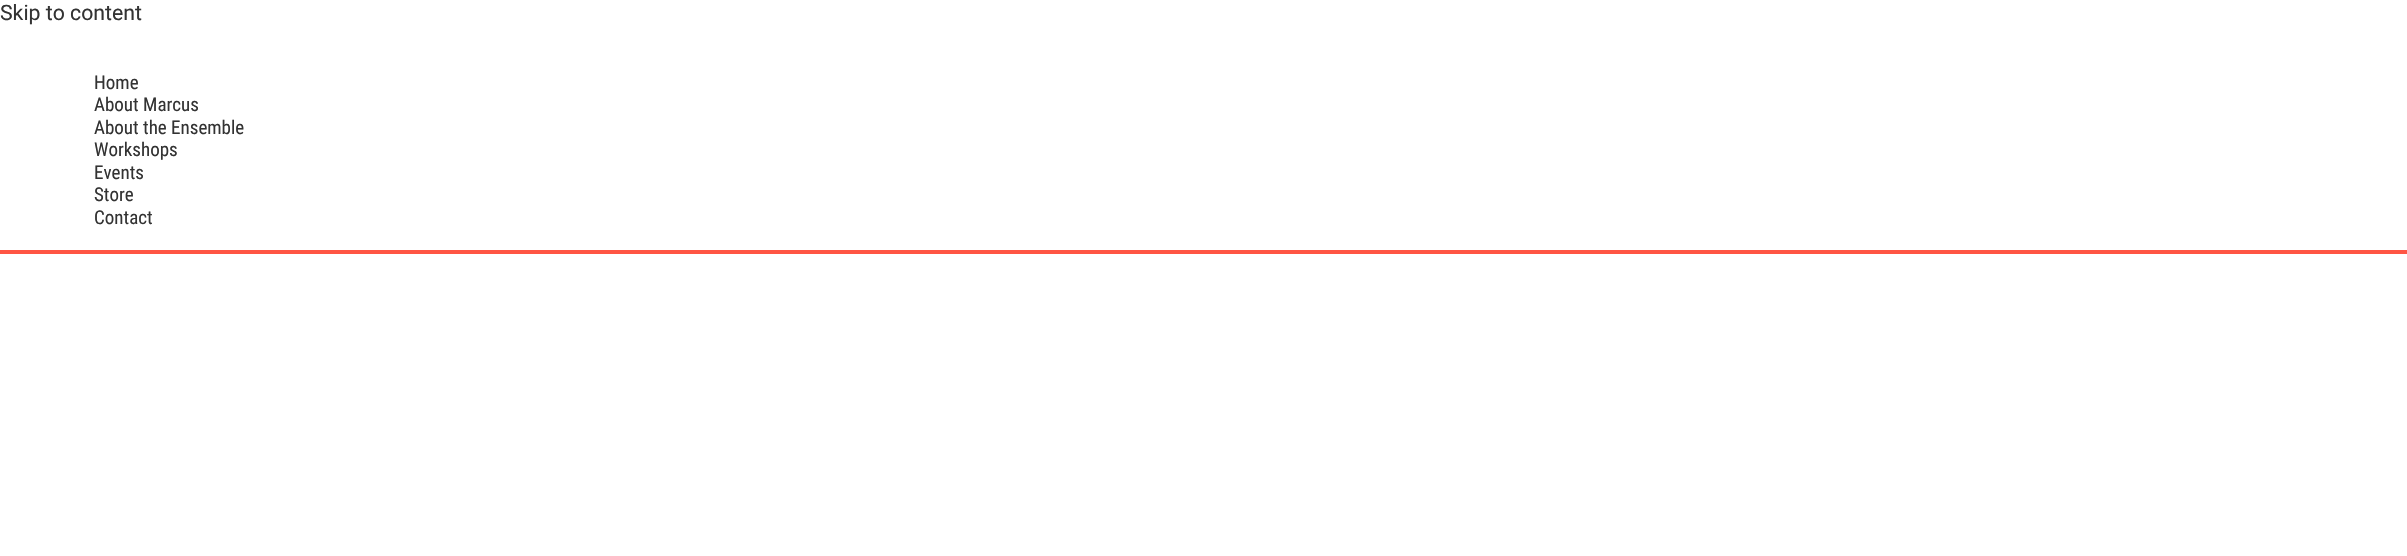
#include "include/core/SkBlurTypes.h"
#include "include/core/SkCanvas.h"
#include "include/core/SkData.h"
#include "include/core/SkFont.h"
#include "include/core/SkFontMgr.h"
#include "include/core/SkImage.h"
#include "include/core/SkMaskFilter.h"
#include "include/core/SkPaint.h"
#include "include/core/SkPathBuilder.h"
#include "include/core/SkTextBlob.h"
#include "include/effects/SkDashPathEffect.h"
#include "include/effects/SkGradientShader.h"
#include "include/utils/SkParsePath.h"

extern sk_sp<SkFontMgr> fontMgr;

void draw(SkCanvas* canvas) {
    SkPaint p;
    p.setAntiAlias(true);
    auto font = [&](const char* family, int weight, float size, bool italic = false) {
        SkFontStyle style(weight, SkFontStyle::kNormal_Width,
            italic ? SkFontStyle::kItalic_Slant : SkFontStyle::kUpright_Slant);
        SkFont result(fontMgr->matchFamilyStyle(family, style), size);
        result.setSubpixel(true);
        return result;
    };
    canvas->clear(0xFFFFFFFF);
    auto font1 = font("Roboto", 400, 21.25f);
    p.setColor(0xFF333333);
    canvas->drawString("Skip to content", 0, 20, font1, p);
    p.setColor(0xFFFF5544);
    canvas->drawRect(SkRect::MakeLTRB(0, 250, 2407, 254), p);
    auto font2 = font("Roboto Condensed", 400, 19);
    p.setColor(0xFF333333);
    {
        const struct { const char* s; float x, y; } items[] = {
            {"Home", 94, 89},
            {"About Marcus", 94, 111},
            {"About the Ensemble", 94, 134},
            {"Workshops", 94, 156},
            {"Events", 94, 179},
            {"Store", 94, 201},
            {"Contact", 94, 224},
        };
        for (auto [s, x, y] : items) {
            canvas->drawString(s, x, y, font2, p);
        }
    }
}
